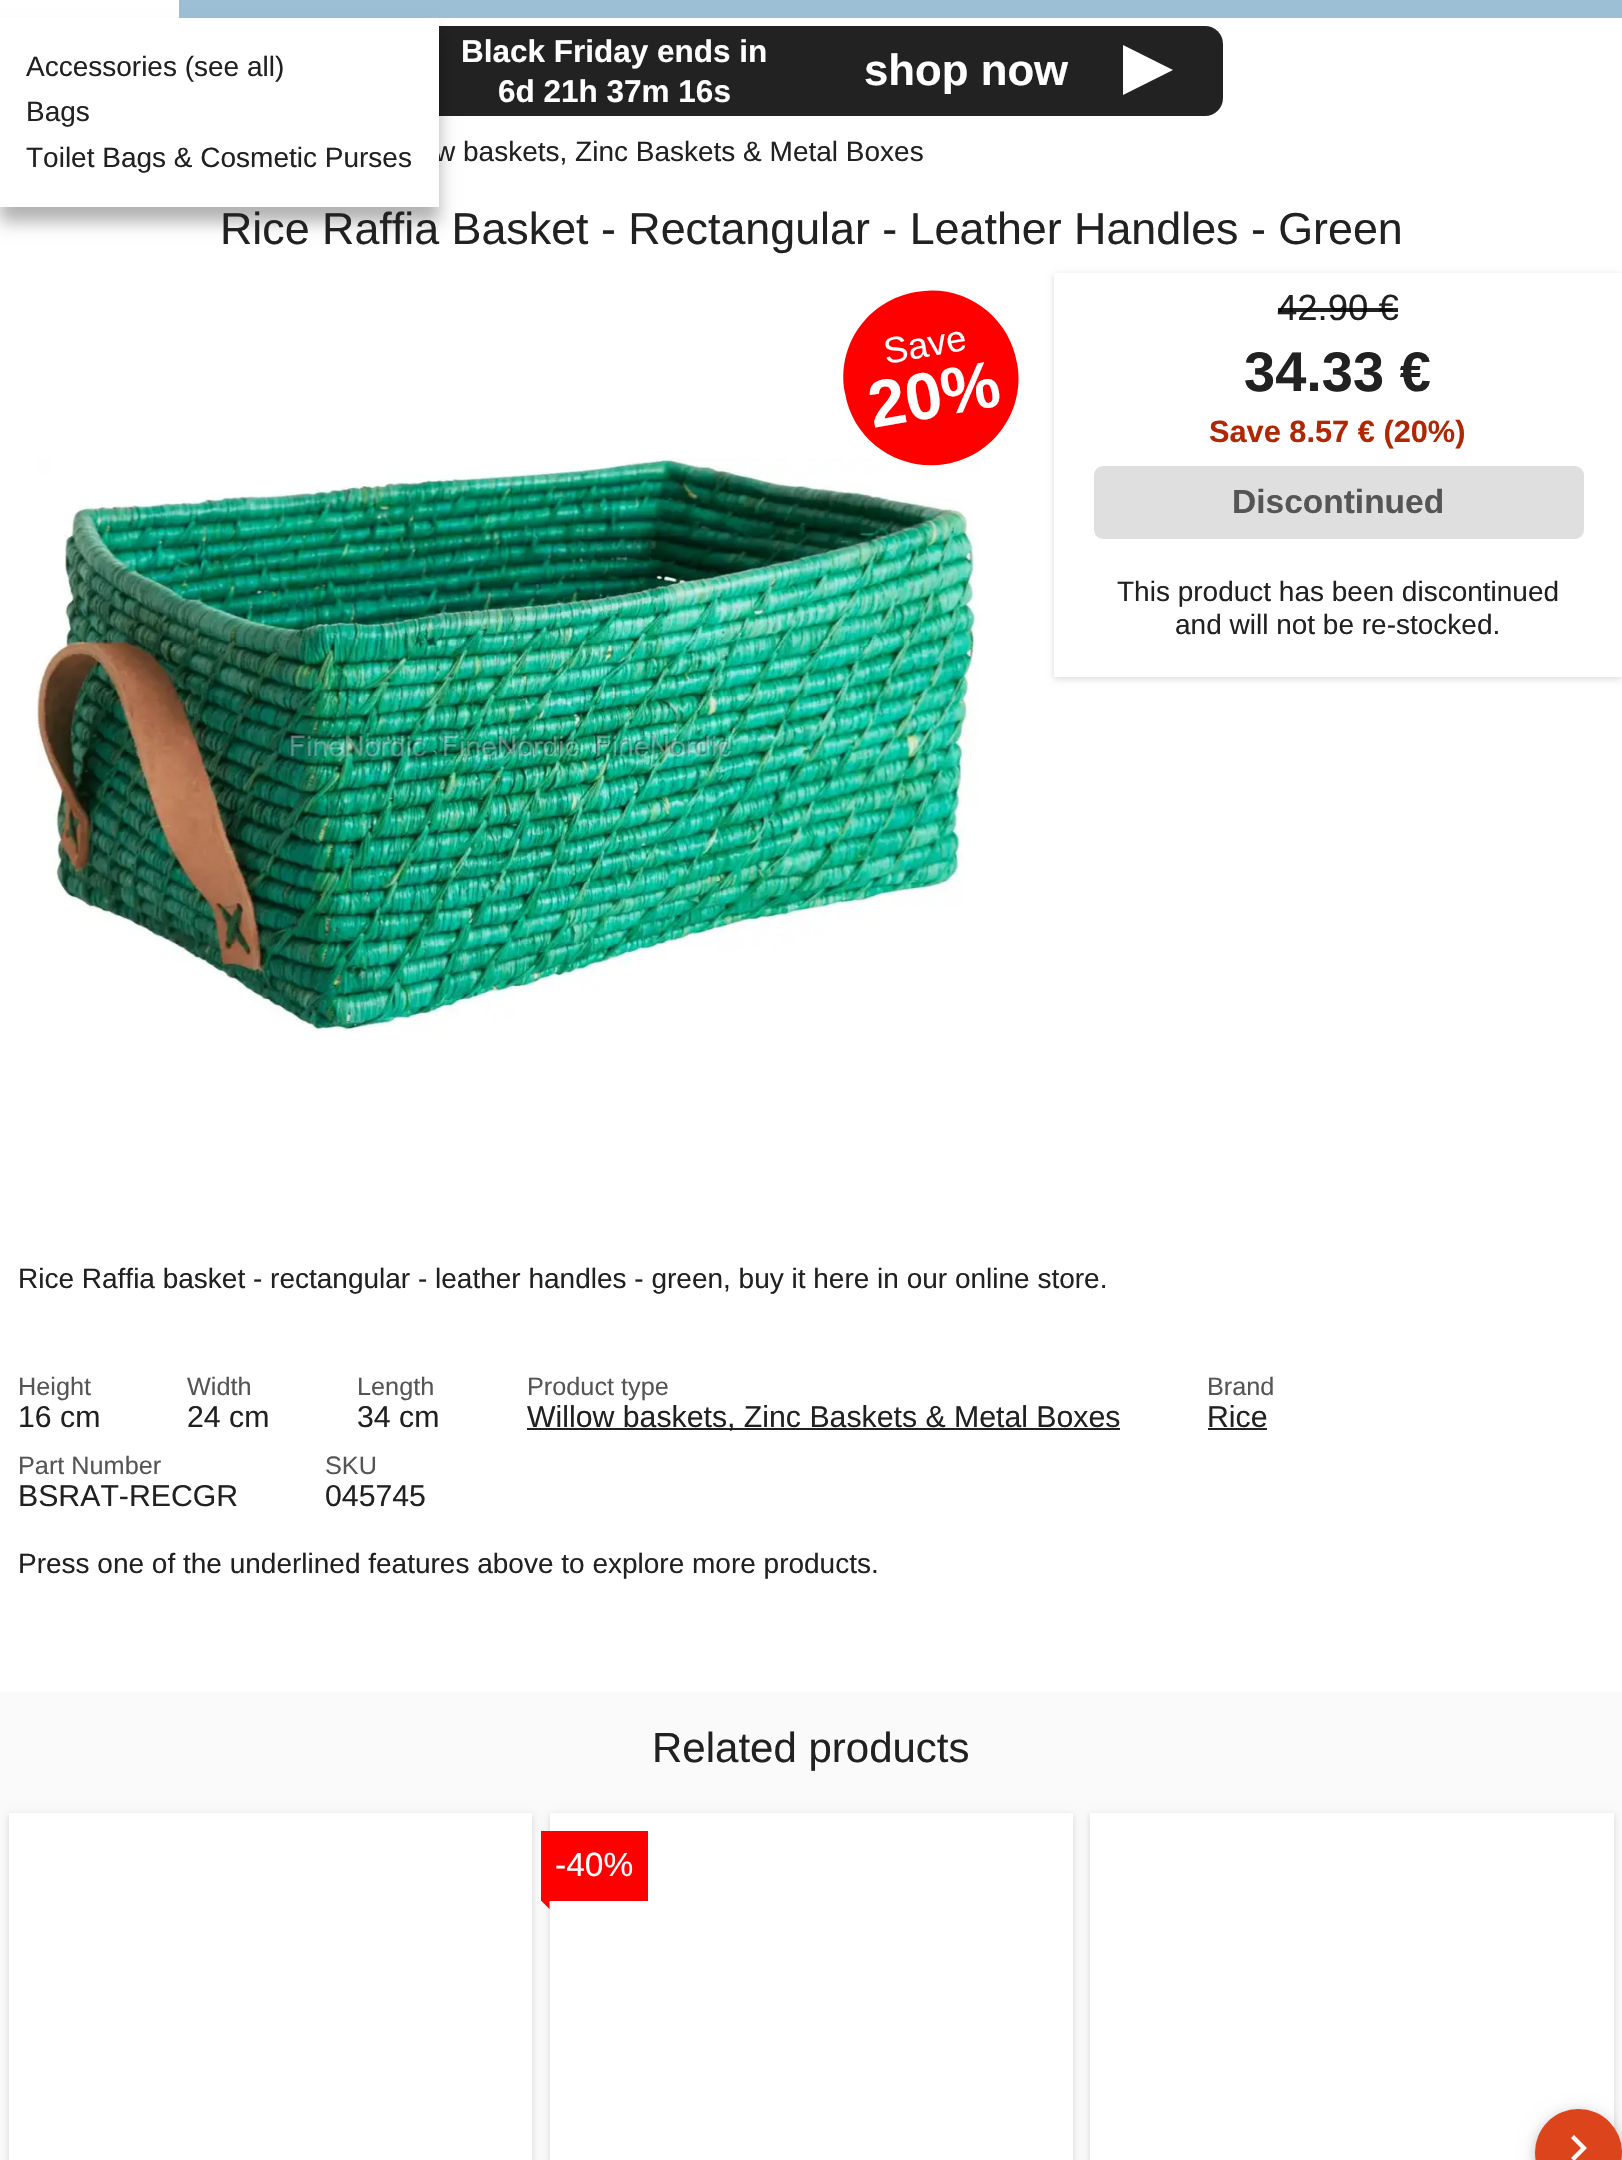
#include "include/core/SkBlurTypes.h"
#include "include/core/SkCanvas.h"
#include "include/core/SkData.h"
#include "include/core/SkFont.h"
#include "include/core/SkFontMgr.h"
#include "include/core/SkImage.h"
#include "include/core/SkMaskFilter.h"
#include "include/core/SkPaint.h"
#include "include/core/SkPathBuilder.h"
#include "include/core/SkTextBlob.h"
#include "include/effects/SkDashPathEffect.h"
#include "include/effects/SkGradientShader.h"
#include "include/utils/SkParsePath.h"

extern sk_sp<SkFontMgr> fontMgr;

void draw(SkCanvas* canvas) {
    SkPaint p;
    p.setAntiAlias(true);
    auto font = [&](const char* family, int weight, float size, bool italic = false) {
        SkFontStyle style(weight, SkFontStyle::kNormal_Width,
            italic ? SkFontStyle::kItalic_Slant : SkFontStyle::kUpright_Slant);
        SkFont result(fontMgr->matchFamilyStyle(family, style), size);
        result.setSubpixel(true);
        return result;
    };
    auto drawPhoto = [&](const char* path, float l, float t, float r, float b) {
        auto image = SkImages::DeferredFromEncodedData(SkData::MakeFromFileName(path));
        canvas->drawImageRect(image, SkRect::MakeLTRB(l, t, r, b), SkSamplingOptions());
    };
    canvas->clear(0xFFFFFFFF);
    p.setColor(0xFF9CBFD5);
    canvas->drawRect(SkRect::MakeLTRB(179, 0, 1622, 18), p);
    p.setColor(0xFF222222);
    canvas->drawRoundRect(SkRect::MakeLTRB(401, 26, 1223, 116), 18, 18, p);
    p.setColor(0x4D000000);
    p.setMaskFilter(SkMaskFilter::MakeBlur(kNormal_SkBlurStyle, 8));
    canvas->drawRect(SkRect::MakeLTRB(0, 33, 439, 222), p);
    p.setMaskFilter(nullptr);
    auto font1 = font("Liberation Sans", 400, 28);
    p.setColor(0xFF212121);
    canvas->drawString("w baskets, Zinc Baskets & Metal Boxes", 435, 161, font1, p);
    p.setColor(0xFFFFFFFF);
    canvas->drawRect(SkRect::MakeLTRB(0, 18, 439, 207), p);
    p.setColor(0xFF212121);
    {
        const struct { const char* s; float x, y; } items[] = {
            {"Accessories (see all)", 26, 76},
            {"Bags", 26, 121},
            {"Toilet Bags & Cosmetic Purses", 26, 167},
        };
        for (auto [s, x, y] : items) {
            canvas->drawString(s, x, y, font1, p);
        }
    }
    auto font2 = font("Liberation Sans", 700, 31.5f);
    p.setColor(0xFFFFFFFF);
    canvas->drawString("Black Friday ends in", 461, 62, font2, p);
    canvas->drawString("6d 21h 37m 16s", 498, 102, font2, p);
    auto font3 = font("Liberation Sans", 700, 43.75f);
    canvas->drawString("shop now", 864, 85, font3, p);
    canvas->drawPath(SkPathBuilder().moveTo(1173, 70).lineTo(1123, 95).lineTo(1123, 45).close().detach(), p);
    auto font4 = font("Liberation Sans", 400, 44.8f);
    p.setColor(0xFF212121);
    canvas->drawString("Rice Raffia Basket - Rectangular - Leather Handles - Green", 220, 244, font4, p);
    drawPhoto("media/1.png", 37, 458, 981, 1032);
    p.setColor(0xFFFF0000);
    canvas->drawPath(SkPathBuilder().moveTo(916, 292).cubicTo(963, 283, 1009, 315, 1017, 363).cubicTo(1026, 410, 994, 456, 946, 464).cubicTo(899, 472, 853, 441, 845, 393).cubicTo(836, 345, 868, 300, 916, 292).close().detach(), p);
    auto font5 = font("Liberation Sans", 400, 36.5f);
    p.setColor(0xFFFFFFFF);
    canvas->save();
    canvas->rotate(-10, 886, 364);
    canvas->drawString("Save", 886, 364, font5, p);
    canvas->restore();
    auto font6 = font("Liberation Sans", 700, 66);
    canvas->save();
    canvas->rotate(-10, 873, 428);
    canvas->drawString("20%", 873, 428, font6, p);
    canvas->restore();
    canvas->save();
    canvas->clipPath(SkPathBuilder(SkPathFillType::kEvenOdd).moveTo(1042, 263).lineTo(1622, 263).lineTo(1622, 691).lineTo(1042, 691).close().moveTo(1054, 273).lineTo(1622, 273).lineTo(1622, 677).lineTo(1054, 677).close().detach(), true);
    p.setColor(0x24000000);
    p.setMaskFilter(SkMaskFilter::MakeBlur(kNormal_SkBlurStyle, 3.5f));
    canvas->drawRect(SkRect::MakeLTRB(1054, 275, 1622, 679), p);
    p.setMaskFilter(nullptr);
    canvas->restore();
    p.setColor(0xFF212121);
    canvas->drawString("42.90 €", 1277, 320, font5, p);
    p.setColor(0xDE000000);
    canvas->drawRect(SkRect::MakeLTRB(1278, 308, 1398, 312), p);
    auto font7 = font("Liberation Sans", 700, 56);
    p.setColor(0xFF212121);
    canvas->drawString("34.33 €", 1244, 391, font7, p);
    auto font8 = font("Liberation Sans", 700, 30.75f);
    p.setColor(0xFFB12704);
    canvas->drawString("Save 8.57 € (20%)", 1209, 442, font8, p);
    p.setColor(0xFFDFDFDF);
    canvas->drawRoundRect(SkRect::MakeLTRB(1094, 466, 1584, 539), 9, 9, p);
    auto font9 = font("Liberation Sans", 700, 33.5f);
    p.setColor(0xFF555555);
    canvas->drawString("Discontinued", 1232, 513, font9, p);
    p.setColor(0xFF212121);
    {
        const struct { const char* s; float x, y; } items[] = {
            {"This product has been discontinued", 1117, 601},
            {"and will not be re-stocked.", 1175, 634},
            {"Rice Raffia basket - rectangular - leather handles - green, buy it here in our online store.", 18, 1288},
        };
        for (auto [s, x, y] : items) {
            canvas->drawString(s, x, y, font1, p);
        }
    }
    auto font10 = font("Liberation Sans", 400, 25.25f);
    p.setColor(0xFF555555);
    canvas->drawString("Height", 18, 1395, font10, p);
    auto font11 = font("Liberation Sans", 400, 30.25f);
    p.setColor(0xFF212121);
    canvas->drawString("16 cm", 18, 1427, font11, p);
    p.setColor(0xFF555555);
    canvas->drawString("Width", 187, 1395, font10, p);
    p.setColor(0xFF212121);
    canvas->drawString("24 cm", 187, 1427, font11, p);
    p.setColor(0xFF555555);
    canvas->drawString("Length", 357, 1395, font10, p);
    p.setColor(0xFF212121);
    canvas->drawString("34 cm", 357, 1427, font11, p);
    p.setColor(0xFF555555);
    canvas->drawString("Product type", 527, 1395, font10, p);
    p.setColor(0xFF222222);
    canvas->drawRect(SkRect::MakeLTRB(527, 1428, 1120, 1430), p);
    p.setColor(0xFF212121);
    canvas->drawString("Willow baskets, Zinc Baskets & Metal Boxes", 527, 1427, font11, p);
    p.setColor(0xFF555555);
    canvas->drawString("Brand", 1207, 1395, font10, p);
    p.setColor(0xFF212121);
    canvas->drawString("Rice", 1207, 1427, font11, p);
    p.setColor(0xFF222222);
    canvas->drawRect(SkRect::MakeLTRB(1208, 1428, 1267, 1430), p);
    p.setColor(0xFF555555);
    canvas->drawString("Part Number", 18, 1474, font10, p);
    p.setColor(0xFF212121);
    canvas->drawString("BSRAT-RECGR", 18, 1506, font11, p);
    p.setColor(0xFF555555);
    canvas->drawString("SKU", 325, 1474, font10, p);
    p.setColor(0xFF212121);
    canvas->drawString("045745", 325, 1506, font11, p);
    canvas->drawString("Press one of the underlined features above to explore more products.", 18, 1573, font1, p);
    p.setColor(0xFFFAFAFA);
    canvas->drawRect(SkRect::MakeLTRB(0, 1692, 1622, 2160), p);
    auto font12 = font("Liberation Sans", 400, 42);
    p.setColor(0xFF212121);
    canvas->drawString("Related products", 652, 1762, font12, p);
    p.setColor(0x24000000);
    p.setMaskFilter(SkMaskFilter::MakeBlur(kNormal_SkBlurStyle, 3.5f));
    canvas->drawRect(SkRect::MakeLTRB(9, 1815, 532, 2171), p);
    p.setMaskFilter(nullptr);
    p.setColor(0xFFFFFFFF);
    canvas->drawRect(SkRect::MakeLTRB(9, 1813, 532, 2160), p);
    p.setColor(0x24000000);
    p.setMaskFilter(SkMaskFilter::MakeBlur(kNormal_SkBlurStyle, 3.5f));
    canvas->drawRect(SkRect::MakeLTRB(550, 1815, 1073, 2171), p);
    p.setMaskFilter(nullptr);
    p.setColor(0xFFFFFFFF);
    canvas->drawRect(SkRect::MakeLTRB(550, 1813, 1073, 2160), p);
    p.setColor(0xFFFF0000);
    canvas->drawRect(SkRect::MakeLTRB(541, 1831, 648, 1901), p);
    auto font13 = font("Liberation Sans", 400, 33.5f);
    p.setColor(0xFFFFFFFF);
    canvas->drawString("-40%", 555, 1876, font13, p);
    p.setColor(0xFFFF0000);
    canvas->drawPath(SkPathBuilder().moveTo(549.5f, 1892).lineTo(549.5f, 1909).lineTo(541, 1900.5f).close().detach(), p);
    p.setColor(0x24000000);
    p.setMaskFilter(SkMaskFilter::MakeBlur(kNormal_SkBlurStyle, 3.5f));
    canvas->drawRect(SkRect::MakeLTRB(1090, 1815, 1614, 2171), p);
    p.setMaskFilter(nullptr);
    p.setColor(0xFFFFFFFF);
    canvas->drawRect(SkRect::MakeLTRB(1090, 1813, 1614, 2160), p);
    p.setColor(0x1F000000);
    p.setMaskFilter(SkMaskFilter::MakeBlur(kNormal_SkBlurStyle, 9));
    canvas->drawRoundRect(SkRect::MakeLTRB(1535, 2112, 1622, 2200), 43.5f, 43.5f, p);
    p.setMaskFilter(nullptr);
    p.setColor(0x29000000);
    p.setMaskFilter(SkMaskFilter::MakeBlur(kNormal_SkBlurStyle, 4.5f));
    canvas->drawRoundRect(SkRect::MakeLTRB(1535, 2112, 1622, 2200), 43.5f, 43.5f, p);
    p.setMaskFilter(nullptr);
    p.setColor(0xFFDC451C);
    canvas->drawCircle(1578.5f, 2152.5f, 43.5f, p);
    p.setColor(0xFFFFFFFF);
    canvas->drawPath(SkPathBuilder().moveTo(1571, 2138).lineTo(1574, 2135).lineTo(1587, 2148).lineTo(1574, 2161).lineTo(1571, 2158).lineTo(1581, 2148).close().detach(), p);
}
